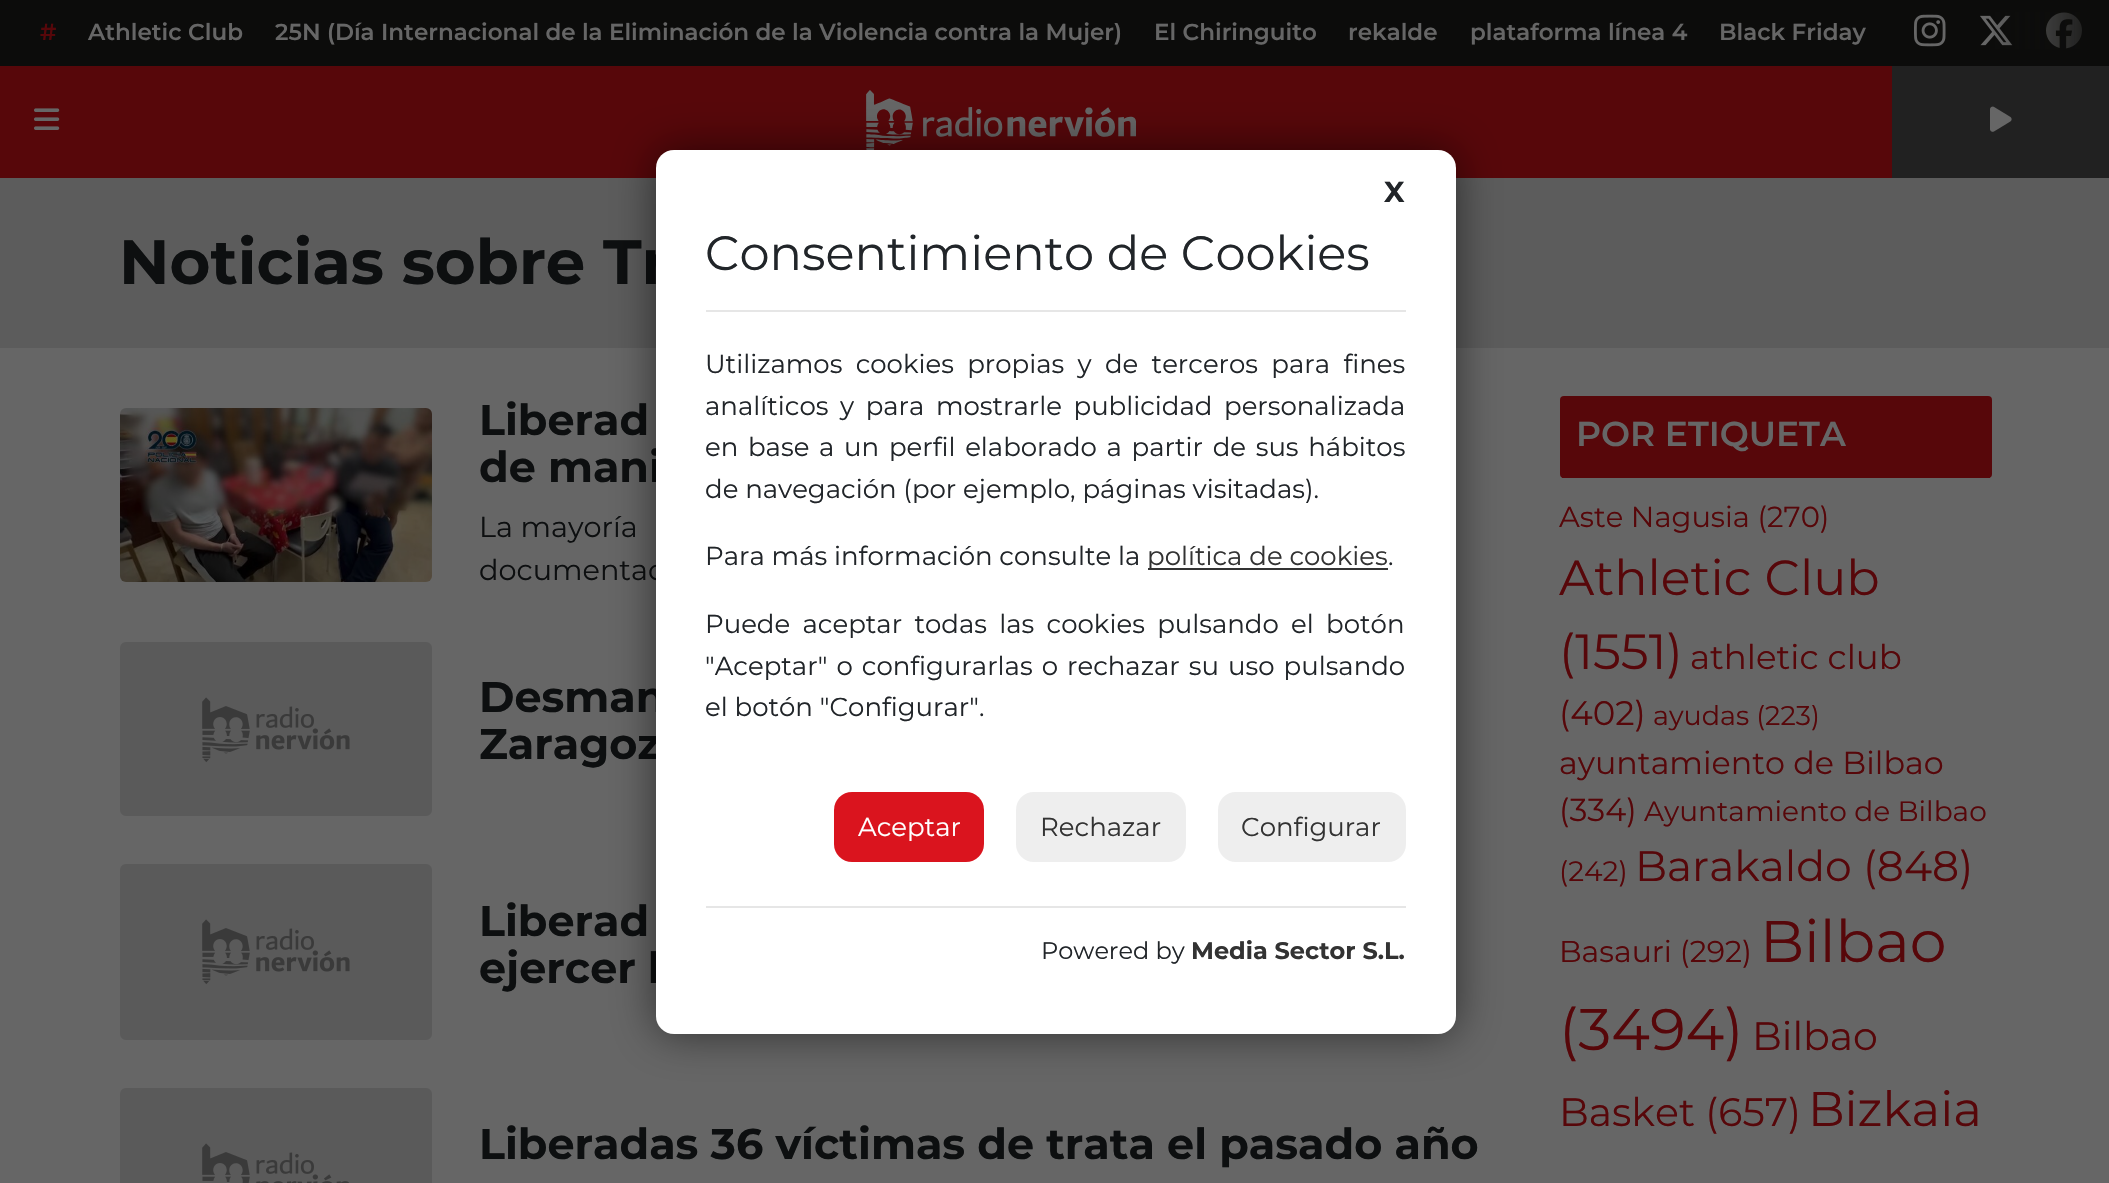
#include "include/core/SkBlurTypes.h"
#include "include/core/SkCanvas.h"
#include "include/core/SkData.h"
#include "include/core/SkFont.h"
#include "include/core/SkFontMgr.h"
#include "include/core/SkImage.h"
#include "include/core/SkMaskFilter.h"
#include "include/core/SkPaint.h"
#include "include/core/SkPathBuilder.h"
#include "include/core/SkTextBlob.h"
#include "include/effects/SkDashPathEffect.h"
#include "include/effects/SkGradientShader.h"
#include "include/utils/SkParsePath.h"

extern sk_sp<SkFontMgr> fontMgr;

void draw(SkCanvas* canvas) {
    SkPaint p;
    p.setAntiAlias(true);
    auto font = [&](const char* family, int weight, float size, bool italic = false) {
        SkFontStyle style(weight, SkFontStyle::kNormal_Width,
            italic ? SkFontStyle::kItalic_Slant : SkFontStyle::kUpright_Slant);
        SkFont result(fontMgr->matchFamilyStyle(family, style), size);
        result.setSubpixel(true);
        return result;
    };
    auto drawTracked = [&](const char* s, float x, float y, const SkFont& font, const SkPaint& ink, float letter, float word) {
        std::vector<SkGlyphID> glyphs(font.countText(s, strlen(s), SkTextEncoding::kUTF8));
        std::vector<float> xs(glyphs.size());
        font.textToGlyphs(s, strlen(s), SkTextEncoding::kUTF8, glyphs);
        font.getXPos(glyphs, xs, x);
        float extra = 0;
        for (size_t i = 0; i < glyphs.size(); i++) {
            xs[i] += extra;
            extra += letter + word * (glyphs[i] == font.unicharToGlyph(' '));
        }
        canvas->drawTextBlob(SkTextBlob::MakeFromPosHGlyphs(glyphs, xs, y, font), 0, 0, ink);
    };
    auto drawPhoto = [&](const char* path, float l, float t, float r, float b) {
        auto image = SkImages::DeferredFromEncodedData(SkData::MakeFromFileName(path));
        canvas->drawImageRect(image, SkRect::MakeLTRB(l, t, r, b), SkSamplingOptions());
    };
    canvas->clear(0xFF666666);
    p.setColor(0xFF57070A);
    canvas->drawRect(SkRect::MakeLTRB(0, 66, 1892, 178), p);
    p.setColor(0xFF0C0C0B);
    canvas->drawRect(SkRect::MakeLTRB(0, 0, 2109, 66), p);
    auto font1 = font("Montserrat", 600, 23.05f);
    p.setColor(0xFF57070A);
    canvas->drawString("#", 40, 40, font1, p);
    p.setColor(0xFF666666);
    {
        const struct { const char* s; float x, y; } items[] = {
            {"Athletic Club", 88, 40},
            {"25N (Día Internacional de la Eliminación de la Violencia contra la Mujer)", 275, 40},
            {"El Chiringuito", 1154, 40},
            {"rekalde", 1348, 40},
            {"plataforma línea 4", 1470, 40},
            {"Black Friday", 1719, 40},
        };
        for (auto [s, x, y] : items) {
            canvas->drawString(s, x, y, font1, p);
        }
    }
    drawPhoto("media/1.png", 1914, 14, 1946, 47);
    drawPhoto("media/2.png", 1980, 15, 2013, 46);
    drawPhoto("media/3.png", 2046, 12, 2082, 49);
    {
        const SkColor colors[] = {0x000C0C0B, 0xFF0C0C0B};
        const float stops[] = {0, 1};
        const SkPoint ends[] = {{1990, 33}, {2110, 33}};
        p.setShader(SkGradientShader::MakeLinear(ends, colors, stops, 2, SkTileMode::kClamp));
        p.setAlpha(255);
    }
    canvas->drawRect(SkRect::MakeLTRB(1993, 12, 2082, 49), p);
    drawPhoto("media/4.png", 34, 108, 60, 130);
    drawPhoto("media/5.png", 866, 90, 1136, 150);
    p.setShader(nullptr);
    p.setColor(0xFF212121);
    canvas->drawRect(SkRect::MakeLTRB(1892, 66, 2109, 178), p);
    drawPhoto("media/6.png", 1990, 106, 2012, 132);
    p.setColor(0xFF5C5C5C);
    canvas->drawRect(SkRect::MakeLTRB(0, 178, 2109, 348), p);
    auto font2 = font("Montserrat", 700, 62.5f);
    p.setColor(0xFF0D0F10);
    canvas->drawString("Noticias sobre Tr", 119, 284, font2, p);
    drawPhoto("media/7.png", 120, 408, 432, 582);
    auto font3 = font("Montserrat", 700, 42.9f);
    canvas->drawString("Liberad", 479, 435, font3, p);
    canvas->drawString("de mani", 479, 482, font3, p);
    auto font4 = font("Montserrat", 400, 28.75f);
    canvas->drawString("La mayoría", 479, 537, font4, p);
    canvas->drawString("documentac", 479, 580, font4, p);
    drawPhoto("media/8.png", 120, 642, 432, 816);
    canvas->drawString("Desman", 479, 712, font3, p);
    canvas->drawString("Zaragoz", 479, 759, font3, p);
    drawPhoto("media/9.png", 120, 864, 432, 1040);
    canvas->drawString("Liberad", 479, 936, font3, p);
    canvas->drawString("ejercer l", 479, 983, font3, p);
    drawPhoto("media/10.png", 120, 1088, 432, 1183);
    canvas->drawString("Liberadas 36 víctimas de trata el pasado año", 479, 1159, font3, p);
    p.setColor(0xFF57070A);
    canvas->drawRoundRect(SkRect::MakeLTRB(1560, 396, 1992, 478), 4, 4, p);
    canvas->drawRect(SkRect::MakeLTRB(1562, 477, 1990, 478), p);
    auto font5 = font("Montserrat", 600, 34.5f);
    p.setColor(0xFF666666);
    canvas->drawString("POR ETIQUETA", 1576, 446, font5, p);
    auto font6 = font("Montserrat", 400, 29);
    p.setColor(0xFF57070A);
    canvas->drawString("Aste Nagusia (270)", 1559, 527, font6, p);
    auto font7 = font("Montserrat", 400, 49.25f);
    canvas->drawString("Athletic Club", 1559, 595, font7, p);
    canvas->drawString("(1551)", 1559, 669, font7, p);
    auto font8 = font("Montserrat", 400, 34);
    canvas->drawString("athletic club", 1690, 669, font8, p);
    canvas->drawString("(402)", 1559, 725, font8, p);
    auto font9 = font("Montserrat", 400, 27);
    canvas->drawString("ayudas (223)", 1653, 725, font9, p);
    auto font10 = font("Montserrat", 400, 31.75f);
    canvas->drawString("ayuntamiento de Bilbao", 1559, 774, font10, p);
    canvas->drawString("(334)", 1559, 821, font10, p);
    auto font11 = font("Montserrat", 400, 28);
    canvas->drawString("Ayuntamiento de Bilbao", 1644, 821, font11, p);
    canvas->drawString("(242)", 1559, 881, font11, p);
    auto font12 = font("Montserrat", 400, 42.5f);
    canvas->drawString("Barakaldo (848)", 1635, 881, font12, p);
    auto font13 = font("Montserrat", 400, 30);
    canvas->drawString("Basauri (292)", 1559, 962, font13, p);
    auto font14 = font("Montserrat", 400, 58.5f);
    canvas->drawString("Bilbao", 1760, 962, font14, p);
    canvas->drawString("(3494)", 1559, 1050, font14, p);
    auto font15 = font("Montserrat", 400, 39.5f);
    canvas->drawString("Bilbao", 1752, 1050, font15, p);
    canvas->drawString("Basket (657)", 1559, 1126, font15, p);
    auto font16 = font("Montserrat", 400, 48.5f);
    canvas->drawString("Bizkaia", 1808, 1126, font16, p);
    p.setColor(0x8A000000);
    p.setMaskFilter(SkMaskFilter::MakeBlur(kNormal_SkBlurStyle, 22));
    canvas->drawRoundRect(SkRect::MakeLTRB(656, 150, 1456, 1034), 18, 18, p);
    p.setMaskFilter(nullptr);
    p.setColor(0xFFFFFFFF);
    canvas->drawRoundRect(SkRect::MakeLTRB(656, 150, 1456, 1034), 18, 18, p);
    auto font17 = font("Montserrat", 700, 28.75f);
    p.setColor(0xFF212529);
    canvas->drawString("X", 1384, 202, font17, p);
    p.setColor(0xFFE6E6E6);
    canvas->drawRect(SkRect::MakeLTRB(706, 310, 1406, 312), p);
    auto font18 = font("Montserrat", 400, 48);
    p.setColor(0xFF212529);
    canvas->drawString("Consentimiento de Cookies", 705, 270, font18, p);
    auto font19 = font("Montserrat", 400, 26);
    drawTracked("Utilizamos cookies propias y de terceros para fines", 705, 373, font19, p, 0, 6.5f);
    drawTracked("analíticos y para mostrarle publicidad personalizada", 705, 415, font19, p, 0, 4.75f);
    drawTracked("en base a un perfil elaborado a partir de sus hábitos", 705, 456, font19, p, 0, 2.9f);
    canvas->drawString("de navegación (por ejemplo, páginas visitadas).", 705, 498, font19, p);
    canvas->drawString("Para más información consulte la", 705, 565, font19, p);
    p.setColor(0xFF333333);
    canvas->drawRect(SkRect::MakeLTRB(1148, 568, 1388, 570), p);
    canvas->drawString("política de cookies", 1147, 565, font19, p);
    p.setColor(0xFF212529);
    canvas->drawString(".", 1388, 565, font19, p);
    drawTracked("Puede aceptar todas las cookies pulsando el botón", 705, 633, font19, p, 0, 5.5f);
    drawTracked("\"Aceptar\" o configurarlas o rechazar su uso pulsando", 705, 675, font19, p, 0, 2.25f);
    canvas->drawString("el botón \"Configurar\".", 705, 716, font19, p);
    p.setColor(0xFFDA141E);
    canvas->drawRoundRect(SkRect::MakeLTRB(834, 792, 984, 862), 18, 18, p);
    p.setColor(0xFFFFFFFF);
    canvas->drawString("Aceptar", 858, 836, font19, p);
    p.setColor(0xFFEEEEEE);
    canvas->drawRoundRect(SkRect::MakeLTRB(1016, 792, 1186, 862), 18, 18, p);
    p.setColor(0xFF333333);
    canvas->drawString("Rechazar", 1040, 836, font19, p);
    p.setColor(0xFFEEEEEE);
    canvas->drawRoundRect(SkRect::MakeLTRB(1218, 792, 1406, 862), 18, 18, p);
    p.setColor(0xFF333333);
    canvas->drawString("Configurar", 1241, 836, font19, p);
    p.setColor(0xFFE6E6E6);
    canvas->drawRect(SkRect::MakeLTRB(706, 906, 1406, 908), p);
    auto font20 = font("Montserrat", 400, 24);
    p.setColor(0xFF212529);
    canvas->drawString("Powered by", 1041, 959, font20, p);
    auto font21 = font("Montserrat", 700, 24);
    p.setColor(0xFF333333);
    canvas->drawString("Media Sector S.L.", 1191, 959, font21, p);
}
